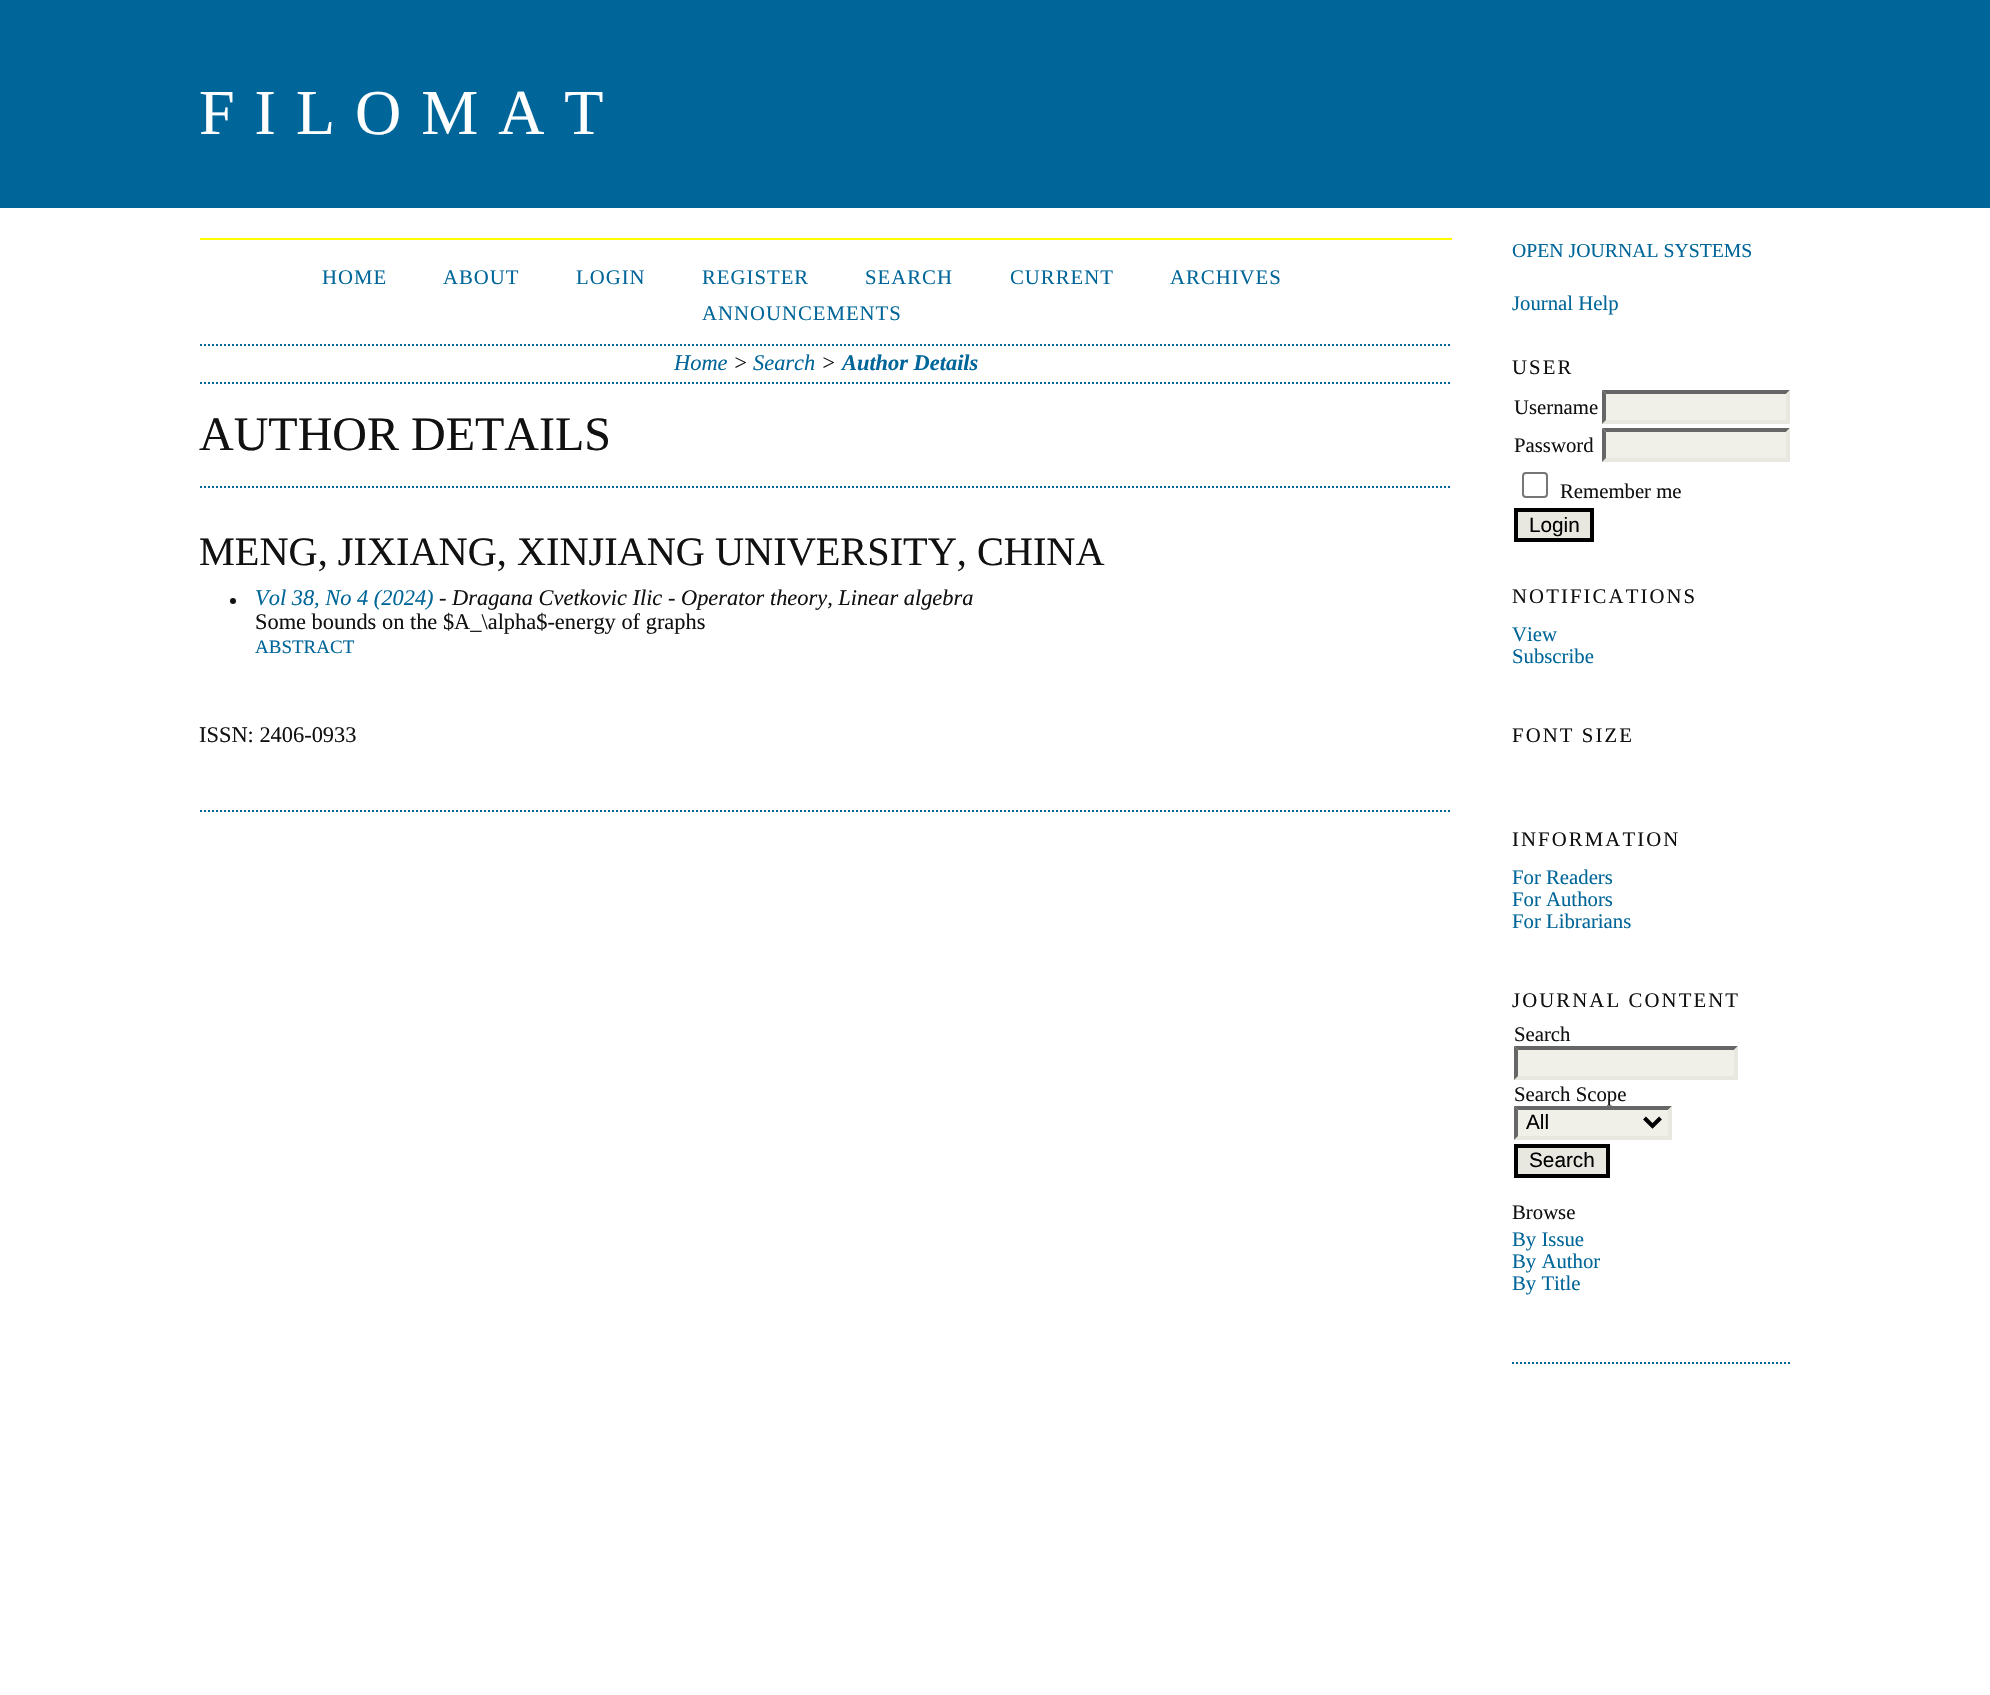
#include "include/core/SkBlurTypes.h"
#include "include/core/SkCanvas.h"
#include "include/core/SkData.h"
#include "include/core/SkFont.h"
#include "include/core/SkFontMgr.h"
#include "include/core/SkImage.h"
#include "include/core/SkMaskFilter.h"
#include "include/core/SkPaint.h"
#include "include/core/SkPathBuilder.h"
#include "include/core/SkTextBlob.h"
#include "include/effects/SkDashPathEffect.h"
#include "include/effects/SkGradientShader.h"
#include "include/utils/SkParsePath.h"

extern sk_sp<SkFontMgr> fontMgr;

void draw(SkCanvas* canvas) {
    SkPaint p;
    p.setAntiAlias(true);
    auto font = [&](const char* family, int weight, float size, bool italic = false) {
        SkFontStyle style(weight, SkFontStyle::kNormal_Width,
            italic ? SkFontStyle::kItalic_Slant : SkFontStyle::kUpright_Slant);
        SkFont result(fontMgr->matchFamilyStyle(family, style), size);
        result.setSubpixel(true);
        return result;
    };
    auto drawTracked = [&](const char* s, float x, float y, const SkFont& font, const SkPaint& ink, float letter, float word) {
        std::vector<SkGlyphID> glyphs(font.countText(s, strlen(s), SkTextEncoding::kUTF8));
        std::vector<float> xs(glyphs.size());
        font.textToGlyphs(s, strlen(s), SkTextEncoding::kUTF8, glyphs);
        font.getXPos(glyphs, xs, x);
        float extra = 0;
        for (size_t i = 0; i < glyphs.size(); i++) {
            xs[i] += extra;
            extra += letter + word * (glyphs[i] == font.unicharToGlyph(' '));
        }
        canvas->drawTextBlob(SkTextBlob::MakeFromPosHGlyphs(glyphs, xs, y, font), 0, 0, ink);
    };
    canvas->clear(0xFFFFFFFF);
    p.setColor(0xFF006699);
    canvas->drawRect(SkRect::MakeLTRB(0, 0, 1990, 208), p);
    auto font1 = font("Liberation Serif", 400, 64);
    p.setColor(0xFFFFFFFF);
    drawTracked("FILOMAT", 199, 134, font1, p, 20, 0);
    p.setColor(0xFFFFFF00);
    canvas->drawRect(SkRect::MakeLTRB(200, 238, 1452, 240), p);
    p.setStyle(SkPaint::kStroke_Style);
    p.setStrokeWidth(2);
    p.setColor(0xFF006699);
    p.setPathEffect(SkDashPathEffect::Make({{2, 2}}, 0));
    canvas->drawPath(SkPathBuilder().moveTo(200, 811).lineTo(1452, 811).detach(), p);
    p.setPathEffect(nullptr);
    p.setPathEffect(SkDashPathEffect::Make({{2, 2}}, 0));
    canvas->drawPath(SkPathBuilder().moveTo(200, 345).lineTo(1452, 345).detach(), p);
    p.setPathEffect(nullptr);
    auto font2 = font("Liberation Serif", 400, 20.75f);
    p.setStyle(SkPaint::kFill_Style);
    {
        const struct { const char* s; float x, y; } items[] = {
            {"HOME", 322, 284},
            {"ABOUT", 443, 284},
            {"LOGIN", 576, 284},
            {"REGISTER", 702, 284},
            {"SEARCH", 865, 284},
            {"CURRENT", 1010, 284},
            {"ARCHIVES", 1170, 284},
            {"ANNOUNCEMENTS", 702, 320},
        };
        for (auto [s, x, y] : items) {
            drawTracked(s, x, y, font2, p, 1, 0);
        }
    }
    p.setStyle(SkPaint::kStroke_Style);
    p.setPathEffect(SkDashPathEffect::Make({{2, 2}}, 0));
    canvas->drawPath(SkPathBuilder().moveTo(200, 383).lineTo(1452, 383).detach(), p);
    p.setPathEffect(nullptr);
    auto font3 = font("Liberation Serif", 400, 22.4f, true);
    p.setStyle(SkPaint::kFill_Style);
    canvas->drawString("Home", 674, 370, font3, p);
    p.setColor(0xFF111111);
    canvas->drawString(">", 733, 370, font3, p);
    p.setColor(0xFF006699);
    canvas->drawString("Search", 753, 370, font3, p);
    p.setColor(0xFF111111);
    canvas->drawString(">", 821, 370, font3, p);
    auto font4 = font("Liberation Serif", 700, 22.4f, true);
    p.setColor(0xFF006699);
    canvas->drawString("Author Details", 842, 370, font4, p);
    auto font5 = font("Liberation Serif", 400, 48);
    p.setColor(0xFF111111);
    canvas->drawString("AUTHOR DETAILS", 199, 450, font5, p);
    p.setStyle(SkPaint::kStroke_Style);
    p.setColor(0xFF006699);
    p.setPathEffect(SkDashPathEffect::Make({{2, 2}}, 0));
    canvas->drawPath(SkPathBuilder().moveTo(200, 487).lineTo(1452, 487).detach(), p);
    p.setPathEffect(nullptr);
    auto font6 = font("Liberation Serif", 400, 40.3f);
    p.setStyle(SkPaint::kFill_Style);
    p.setColor(0xFF111111);
    canvas->drawString("MENG, JIXIANG, XINJIANG UNIVERSITY, CHINA", 199, 565, font6, p);
    canvas->drawCircle(233, 601, 3, p);
    p.setColor(0xFF006699);
    canvas->drawString("Vol 38, No 4 (2024)", 255, 605, font3, p);
    p.setColor(0xFF111111);
    canvas->drawString("- Dragana Cvetkovic Ilic - Operator theory, Linear algebra", 439, 605, font3, p);
    auto font7 = font("Liberation Serif", 400, 22.4f);
    canvas->drawString("Some bounds on the $A_\\alpha$-energy of graphs", 255, 629, font7, p);
    auto font8 = font("Liberation Serif", 400, 19);
    p.setColor(0xFF006699);
    canvas->drawString("ABSTRACT", 255, 653, font8, p);
    p.setColor(0xFF111111);
    canvas->drawString("ISSN: 2406-0933", 199, 742, font7, p);
    p.setStyle(SkPaint::kStroke_Style);
    p.setColor(0xFF006699);
    p.setPathEffect(SkDashPathEffect::Make({{2, 2}}, 0));
    canvas->drawPath(SkPathBuilder().moveTo(1512, 1363).lineTo(1792, 1363).detach(), p);
    p.setPathEffect(nullptr);
    auto font9 = font("Liberation Serif", 400, 19.75f);
    p.setStyle(SkPaint::kFill_Style);
    canvas->drawString("OPEN JOURNAL SYSTEMS", 1512, 257, font9, p);
    canvas->drawString("Journal Help", 1512, 310, font2, p);
    p.setColor(0xFF111111);
    drawTracked("USER", 1512, 374, font2, p, 2.1f, 0);
    canvas->drawString("Username", 1514, 414, font2, p);
    p.setColor(0xFFF0F0E8);
    canvas->drawRect(SkRect::MakeLTRB(1602, 390, 1790, 424), p);
    p.setColor(0xFF666666);
    canvas->drawPath(SkPathBuilder().moveTo(1602, 390).lineTo(1790, 390).lineTo(1786, 394).lineTo(1606, 394).close().detach(), p);
    p.setColor(0xFFE8E8E1);
    canvas->drawPath(SkPathBuilder().moveTo(1790, 390).lineTo(1790, 424).lineTo(1786, 420).lineTo(1786, 394).close().detach(), p);
    canvas->drawPath(SkPathBuilder().moveTo(1790, 424).lineTo(1602, 424).lineTo(1606, 420).lineTo(1786, 420).close().detach(), p);
    p.setColor(0xFF666666);
    canvas->drawPath(SkPathBuilder().moveTo(1602, 424).lineTo(1602, 390).lineTo(1606, 394).lineTo(1606, 420).close().detach(), p);
    p.setColor(0xFF111111);
    canvas->drawString("Password", 1514, 452, font2, p);
    p.setColor(0xFFF0F0E8);
    canvas->drawRect(SkRect::MakeLTRB(1602, 428, 1790, 462), p);
    p.setColor(0xFF666666);
    canvas->drawPath(SkPathBuilder().moveTo(1602, 428).lineTo(1790, 428).lineTo(1786, 432).lineTo(1606, 432).close().detach(), p);
    p.setColor(0xFFE8E8E1);
    canvas->drawPath(SkPathBuilder().moveTo(1790, 428).lineTo(1790, 462).lineTo(1786, 458).lineTo(1786, 432).close().detach(), p);
    canvas->drawPath(SkPathBuilder().moveTo(1790, 462).lineTo(1602, 462).lineTo(1606, 458).lineTo(1786, 458).close().detach(), p);
    p.setColor(0xFF666666);
    canvas->drawPath(SkPathBuilder().moveTo(1602, 462).lineTo(1602, 428).lineTo(1606, 432).lineTo(1606, 458).close().detach(), p);
    p.setStyle(SkPaint::kStroke_Style);
    p.setColor(0xFF767676);
    canvas->drawRoundRect(SkRect::MakeLTRB(1523, 473, 1547, 497), 3, 3, p);
    p.setStyle(SkPaint::kFill_Style);
    p.setColor(0xFF111111);
    canvas->drawString("Remember me", 1560, 498, font2, p);
    p.setColor(0xFFE8E8E1);
    canvas->drawRect(SkRect::MakeLTRB(1516, 510, 1592, 540), p);
    p.setStyle(SkPaint::kStroke_Style);
    p.setStrokeWidth(4);
    p.setColor(0xFF000000);
    canvas->drawRect(SkRect::MakeLTRB(1516, 510, 1592, 540), p);
    auto font10 = font("Liberation Sans", 400, 20.75f);
    p.setStyle(SkPaint::kFill_Style);
    canvas->drawString("Login", 1529, 532, font10, p);
    p.setColor(0xFF111111);
    drawTracked("NOTIFICATIONS", 1512, 603, font2, p, 2.1f, 0);
    p.setColor(0xFF006699);
    canvas->drawString("View", 1512, 641, font2, p);
    canvas->drawString("Subscribe", 1512, 663, font2, p);
    p.setColor(0xFF111111);
    drawTracked("FONT SIZE", 1512, 742, font2, p, 2.1f, 0);
    drawTracked("INFORMATION", 1512, 846, font2, p, 2.1f, 0);
    p.setColor(0xFF006699);
    {
        const struct { const char* s; float x, y; } items[] = {
            {"For Readers", 1512, 884},
            {"For Authors", 1512, 906},
            {"For Librarians", 1512, 928},
        };
        for (auto [s, x, y] : items) {
            canvas->drawString(s, x, y, font2, p);
        }
    }
    p.setColor(0xFF111111);
    drawTracked("JOURNAL CONTENT", 1512, 1007, font2, p, 2.1f, 0);
    canvas->drawString("Search", 1514, 1041, font2, p);
    p.setColor(0xFFF0F0E8);
    canvas->drawRect(SkRect::MakeLTRB(1514, 1046, 1738, 1080), p);
    p.setColor(0xFF666666);
    canvas->drawPath(SkPathBuilder().moveTo(1514, 1046).lineTo(1738, 1046).lineTo(1734, 1050).lineTo(1518, 1050).close().detach(), p);
    p.setColor(0xFFE8E8E1);
    canvas->drawPath(SkPathBuilder().moveTo(1738, 1046).lineTo(1738, 1080).lineTo(1734, 1076).lineTo(1734, 1050).close().detach(), p);
    canvas->drawPath(SkPathBuilder().moveTo(1738, 1080).lineTo(1514, 1080).lineTo(1518, 1076).lineTo(1734, 1076).close().detach(), p);
    p.setColor(0xFF666666);
    canvas->drawPath(SkPathBuilder().moveTo(1514, 1080).lineTo(1514, 1046).lineTo(1518, 1050).lineTo(1518, 1076).close().detach(), p);
    p.setColor(0xFF111111);
    canvas->drawString("Search Scope", 1514, 1101, font2, p);
    p.setColor(0xFFF0F0E8);
    canvas->drawRect(SkRect::MakeLTRB(1514, 1106, 1672, 1140), p);
    p.setColor(0xFF666666);
    canvas->drawPath(SkPathBuilder().moveTo(1514, 1106).lineTo(1672, 1106).lineTo(1668, 1110).lineTo(1518, 1110).close().detach(), p);
    p.setColor(0xFFE8E8E1);
    canvas->drawPath(SkPathBuilder().moveTo(1672, 1106).lineTo(1672, 1140).lineTo(1668, 1136).lineTo(1668, 1110).close().detach(), p);
    canvas->drawPath(SkPathBuilder().moveTo(1672, 1140).lineTo(1514, 1140).lineTo(1518, 1136).lineTo(1668, 1136).close().detach(), p);
    p.setColor(0xFF666666);
    canvas->drawPath(SkPathBuilder().moveTo(1514, 1140).lineTo(1514, 1106).lineTo(1518, 1110).lineTo(1518, 1136).close().detach(), p);
    p.setStyle(SkPaint::kStroke_Style);
    p.setColor(0xFF000000);
    canvas->drawPath(SkPathBuilder().moveTo(1644.5f, 1118).lineTo(1652.5f, 1126).lineTo(1660.5f, 1118).detach(), p);
    p.setStyle(SkPaint::kFill_Style);
    canvas->drawString("All", 1526, 1129, font10, p);
    p.setColor(0xFFE8E8E1);
    canvas->drawRect(SkRect::MakeLTRB(1516, 1146, 1608, 1176), p);
    p.setStyle(SkPaint::kStroke_Style);
    p.setColor(0xFF000000);
    canvas->drawRect(SkRect::MakeLTRB(1516, 1146, 1608, 1176), p);
    p.setStyle(SkPaint::kFill_Style);
    canvas->drawString("Search", 1529, 1167, font10, p);
    p.setColor(0xFF111111);
    canvas->drawString("Browse", 1512, 1219, font2, p);
    p.setColor(0xFF006699);
    {
        const struct { const char* s; float x, y; } items[] = {
            {"By Issue", 1512, 1246},
            {"By Author", 1512, 1268},
            {"By Title", 1512, 1290},
        };
        for (auto [s, x, y] : items) {
            canvas->drawString(s, x, y, font2, p);
        }
    }
}
